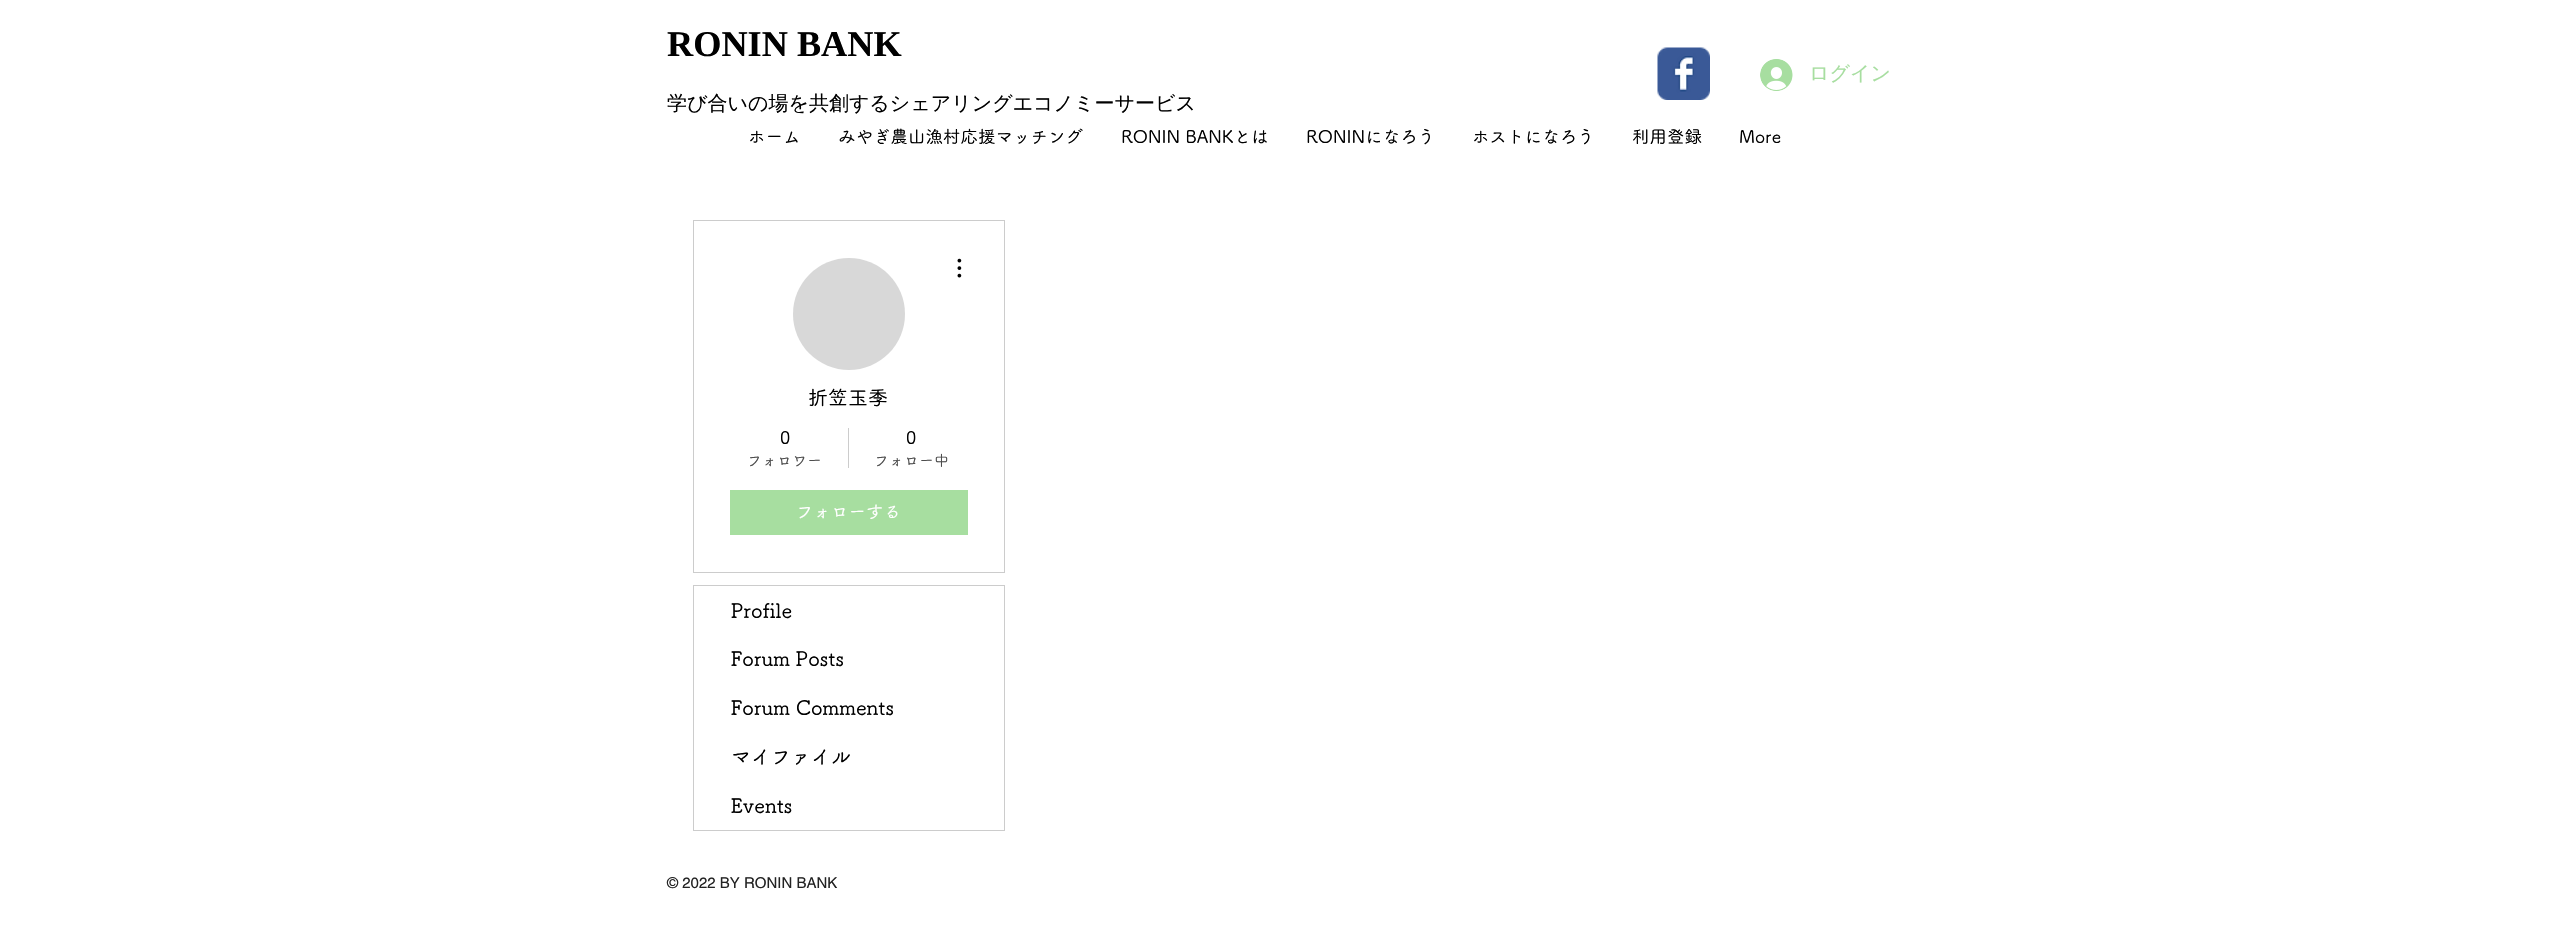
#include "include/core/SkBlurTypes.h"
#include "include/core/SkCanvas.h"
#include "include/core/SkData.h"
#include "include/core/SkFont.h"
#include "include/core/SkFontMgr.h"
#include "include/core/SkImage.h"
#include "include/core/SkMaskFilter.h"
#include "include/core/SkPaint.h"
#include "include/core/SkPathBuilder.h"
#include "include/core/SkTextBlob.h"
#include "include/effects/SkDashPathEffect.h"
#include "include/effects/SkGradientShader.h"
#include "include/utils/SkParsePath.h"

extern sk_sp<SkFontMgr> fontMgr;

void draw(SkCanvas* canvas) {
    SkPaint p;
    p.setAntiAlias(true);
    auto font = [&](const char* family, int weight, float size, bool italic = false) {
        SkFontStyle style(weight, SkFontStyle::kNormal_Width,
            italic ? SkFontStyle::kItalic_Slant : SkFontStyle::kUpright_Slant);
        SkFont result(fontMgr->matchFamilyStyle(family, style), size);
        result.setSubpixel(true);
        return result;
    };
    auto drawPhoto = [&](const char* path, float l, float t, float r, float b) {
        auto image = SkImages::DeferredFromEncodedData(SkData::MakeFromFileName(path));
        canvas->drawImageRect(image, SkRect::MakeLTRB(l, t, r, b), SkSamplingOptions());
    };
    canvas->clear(0xFFFFFFFF);
    auto font1 = font("Liberation Serif", 700, 36.25f);
    p.setColor(0xFF000000);
    canvas->drawString("RONIN BANK", 667, 56, font1, p);
    drawPhoto("media/1.png", 1657, 47, 1710, 100);
    drawPhoto("media/2.png", 1760, 59, 1793, 91);
    auto font2 = font("WenQuanYi Zen Hei", 500, 20);
    p.setColor(0xFFA7DEA0);
    canvas->drawString("ログイン", 1809, 80, font2, p);
    p.setColor(0xFF000000);
    canvas->drawString("学び合いの場を共創するシェアリングエコノミーサービス", 667, 110, font2, p);
    auto font3 = font("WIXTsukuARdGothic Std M", 500, 17.5f);
    {
        const struct { const char* s; float x, y; } items[] = {
            {"ホーム", 748, 143},
            {"みやぎ農山漁村応援マッチング", 838, 143},
            {"RONIN BANKとは", 1121, 143},
            {"RONINになろう", 1306, 143},
            {"ホストになろう", 1472, 143},
            {"利用登録", 1632, 143},
            {"More", 1739, 143},
        };
        for (auto [s, x, y] : items) {
            canvas->drawString(s, x, y, font3, p);
        }
    }
    p.setStyle(SkPaint::kStroke_Style);
    p.setStrokeWidth(1);
    p.setColor(0xFFCCCCCC);
    canvas->drawRect(SkRect::MakeLTRB(693.5f, 220.5f, 1004.5f, 572.5f), p);
    p.setStyle(SkPaint::kFill_Style);
    p.setColor(0xFFD8D8D8);
    canvas->drawCircle(849, 314, 56, p);
    drawPhoto("media/3.png", 957, 258, 962, 278);
    auto font4 = font("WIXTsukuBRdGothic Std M", 500, 20);
    p.setColor(0xFF000000);
    canvas->drawString("折笠玉季", 808, 405, font4, p);
    auto font5 = font("WIXTsukuBRdGothic Std M", 500, 17.5f);
    canvas->drawString("0", 780, 444, font5, p);
    auto font6 = font("WIXTsukuBRdGothic Std M", 500, 15);
    p.setColor(0xFF4D4D4D);
    canvas->drawString("フォロワー", 747, 466, font6, p);
    p.setColor(0xFFCCCCCC);
    canvas->drawRect(SkRect::MakeLTRB(848, 428, 849, 468), p);
    p.setColor(0xFF000000);
    canvas->drawString("0", 906, 444, font5, p);
    p.setColor(0xFF4D4D4D);
    canvas->drawString("フォロー中", 874, 466, font6, p);
    p.setColor(0xFFA7DEA0);
    canvas->drawRect(SkRect::MakeLTRB(730, 490, 968, 535), p);
    p.setColor(0xFFFFFFFF);
    canvas->drawString("フォローする", 796, 518, font5, p);
    p.setStyle(SkPaint::kStroke_Style);
    p.setColor(0xFFCCCCCC);
    canvas->drawRect(SkRect::MakeLTRB(693.5f, 585.5f, 1004.5f, 830.5f), p);
    p.setStyle(SkPaint::kFill_Style);
    p.setColor(0xFF000000);
    {
        const struct { const char* s; float x, y; } items[] = {
            {"Profile", 731, 618},
            {"Forum Posts", 731, 666},
            {"Forum Comments", 731, 715},
            {"マイファイル", 731, 764},
            {"Events", 731, 813},
        };
        for (auto [s, x, y] : items) {
            canvas->drawString(s, x, y, font4, p);
        }
    }
    auto font7 = font("helvetica", 400, 15);
    p.setColor(0xFF232323);
    canvas->drawString("© 2022 BY RONIN BANK", 667, 888, font7, p);
}
